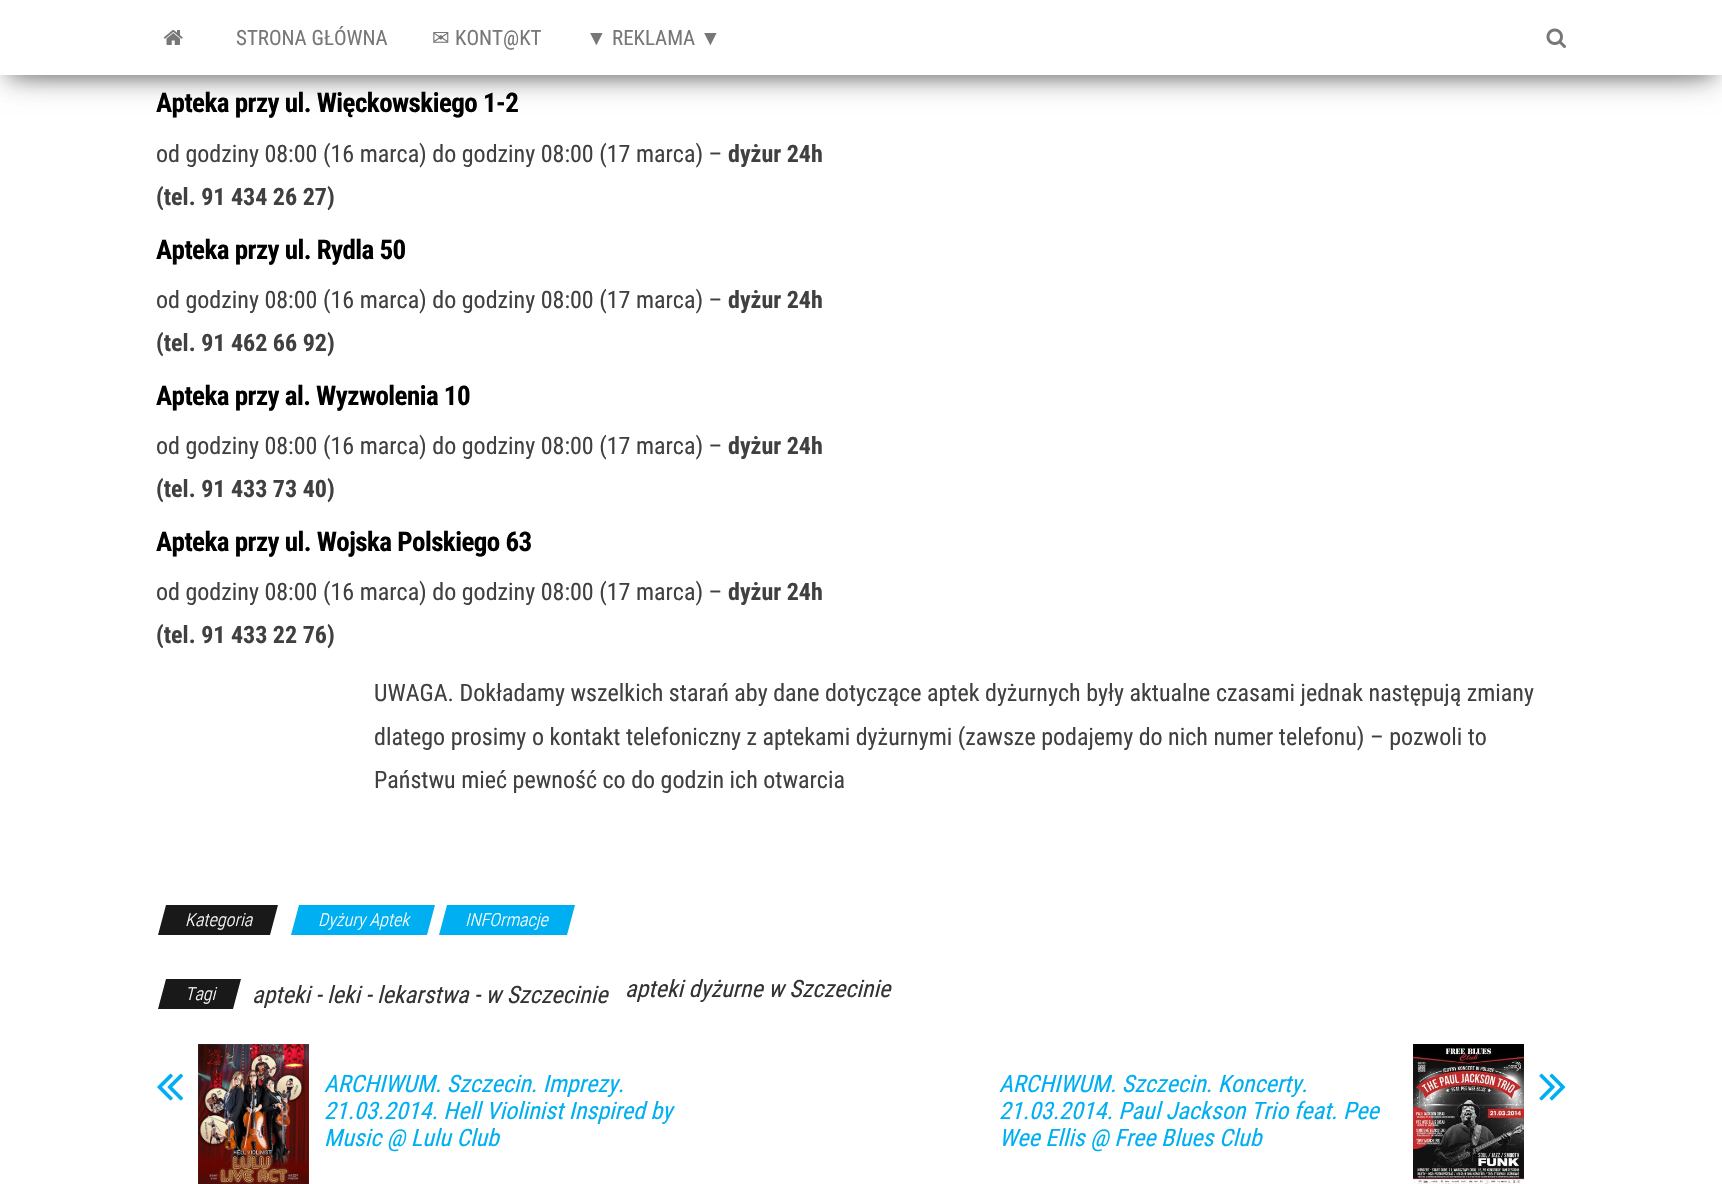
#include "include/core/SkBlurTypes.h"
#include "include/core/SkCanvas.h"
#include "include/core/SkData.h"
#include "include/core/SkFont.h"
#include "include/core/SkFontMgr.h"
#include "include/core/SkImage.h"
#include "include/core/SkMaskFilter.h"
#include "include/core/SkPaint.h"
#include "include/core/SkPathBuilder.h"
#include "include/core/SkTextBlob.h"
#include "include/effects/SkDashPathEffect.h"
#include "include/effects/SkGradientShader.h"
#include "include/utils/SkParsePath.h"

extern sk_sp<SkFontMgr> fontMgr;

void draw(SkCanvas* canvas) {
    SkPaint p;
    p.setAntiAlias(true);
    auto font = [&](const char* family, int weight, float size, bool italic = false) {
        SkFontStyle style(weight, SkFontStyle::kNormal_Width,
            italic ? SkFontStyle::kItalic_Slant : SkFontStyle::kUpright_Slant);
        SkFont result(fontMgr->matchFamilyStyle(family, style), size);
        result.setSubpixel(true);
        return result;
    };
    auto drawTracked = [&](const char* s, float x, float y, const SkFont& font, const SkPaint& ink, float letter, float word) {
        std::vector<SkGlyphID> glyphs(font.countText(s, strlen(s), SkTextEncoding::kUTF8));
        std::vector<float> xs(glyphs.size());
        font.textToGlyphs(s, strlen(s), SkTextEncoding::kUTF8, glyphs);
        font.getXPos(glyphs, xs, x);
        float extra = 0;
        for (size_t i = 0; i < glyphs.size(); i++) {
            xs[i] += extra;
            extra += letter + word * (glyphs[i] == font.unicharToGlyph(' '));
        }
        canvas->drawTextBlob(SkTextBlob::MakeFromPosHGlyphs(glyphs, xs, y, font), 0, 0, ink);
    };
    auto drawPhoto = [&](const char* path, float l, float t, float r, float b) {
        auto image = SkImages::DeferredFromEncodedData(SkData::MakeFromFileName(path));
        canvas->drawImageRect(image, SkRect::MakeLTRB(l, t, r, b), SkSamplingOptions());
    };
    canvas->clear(0xFFFFFFFF);
    p.setColor(0x33000000);
    p.setMaskFilter(SkMaskFilter::MakeBlur(kNormal_SkBlurStyle, 7.5f));
    canvas->drawRect(SkRect::MakeLTRB(8, 20, 1715, 80), p);
    p.setMaskFilter(nullptr);
    p.setColor(0x1F000000);
    p.setMaskFilter(SkMaskFilter::MakeBlur(kNormal_SkBlurStyle, 15));
    canvas->drawRect(SkRect::MakeLTRB(0, 5, 1722, 80), p);
    p.setMaskFilter(nullptr);
    p.setColor(0x6B000000);
    p.setMaskFilter(SkMaskFilter::MakeBlur(kNormal_SkBlurStyle, 15));
    canvas->drawRect(SkRect::MakeLTRB(18, 33, 1704, 72), p);
    p.setMaskFilter(nullptr);
    p.setColor(0xFFFFFFFF);
    canvas->drawRect(SkRect::MakeLTRB(0, 0, 1722, 75), p);
    drawPhoto("media/1.png", 163, 30, 183, 45);
    auto font1 = font("Roboto Condensed", 400, 21);
    p.setColor(0xFF777777);
    canvas->drawString("STRONA GŁÓWNA", 236, 45, font1, p);
    auto font2 = font("DejaVu Sans", 400, 21);
    canvas->drawString("✉", 432, 45, font2, p);
    canvas->drawString("KONT@KT", 455, 45, font1, p);
    auto font3 = font("Liberation Sans", 400, 21);
    canvas->drawString("▼", 586, 45, font3, p);
    canvas->drawString("REKLAMA", 612, 45, font1, p);
    canvas->drawString("▼", 700, 45, font3, p);
    drawPhoto("media/2.png", 1546, 28, 1566, 48);
    auto font4 = font("Roboto Condensed", 700, 27);
    p.setColor(0xFF000000);
    drawTracked("Apteka przy ul. Więckowskiego 1-2", 156, 112, font4, p, -0.55f, 0);
    auto font5 = font("Roboto Condensed", 400, 24);
    p.setColor(0xFF404040);
    canvas->drawString("od godziny 08:00 (16 marca) do godziny 08:00 (17 marca) –", 156, 162, font5, p);
    auto font6 = font("Roboto Condensed", 700, 24);
    canvas->drawString("dyżur 24h", 728, 162, font6, p);
    canvas->drawString("(tel. 91 434 26 27)", 156, 205, font6, p);
    p.setColor(0xFF000000);
    drawTracked("Apteka przy ul. Rydla 50", 156, 259, font4, p, -0.55f, 0);
    p.setColor(0xFF404040);
    canvas->drawString("od godziny 08:00 (16 marca) do godziny 08:00 (17 marca) –", 156, 308, font5, p);
    canvas->drawString("dyżur 24h", 728, 308, font6, p);
    canvas->drawString("(tel. 91 462 66 92)", 156, 351, font6, p);
    p.setColor(0xFF000000);
    drawTracked("Apteka przy al. Wyzwolenia 10", 156, 405, font4, p, -0.55f, 0);
    p.setColor(0xFF404040);
    canvas->drawString("od godziny 08:00 (16 marca) do godziny 08:00 (17 marca) –", 156, 454, font5, p);
    canvas->drawString("dyżur 24h", 728, 454, font6, p);
    canvas->drawString("(tel. 91 433 73 40)", 156, 497, font6, p);
    p.setColor(0xFF000000);
    drawTracked("Apteka przy ul. Wojska Polskiego 63", 156, 551, font4, p, -0.55f, 0);
    p.setColor(0xFF404040);
    canvas->drawString("od godziny 08:00 (16 marca) do godziny 08:00 (17 marca) –", 156, 600, font5, p);
    canvas->drawString("dyżur 24h", 728, 600, font6, p);
    canvas->drawString("(tel. 91 433 22 76)", 156, 643, font6, p);
    {
        const struct { const char* s; float x, y; } items[] = {
            {"UWAGA. Dokładamy wszelkich starań aby dane dotyczące aptek dyżurnych były aktualne czasami jednak następują zmiany", 374, 701},
            {"dlatego prosimy o kontakt telefoniczny z aptekami dyżurnymi (zawsze podajemy do nich numer telefonu) – pozwoli to", 374, 745},
            {"Państwu mieć pewność co do godzin ich otwarcia", 374, 788},
        };
        for (auto [s, x, y] : items) {
            canvas->drawString(s, x, y, font5, p);
        }
    }
    p.setColor(0xFF191919);
    canvas->drawPath(SkPathBuilder().moveTo(166, 905).lineTo(278, 905).lineTo(270, 935).lineTo(158, 935).close().detach(), p);
    auto font7 = font("Roboto Condensed", 300, 18, true);
    p.setColor(0xFFFFFFFF);
    canvas->drawString("Kategoria", 185, 926, font7, p);
    p.setColor(0xFF00AFF2);
    canvas->drawPath(SkPathBuilder().moveTo(299, 905).lineTo(435, 905).lineTo(427, 935).lineTo(291, 935).close().detach(), p);
    p.setColor(0xFFFFFFFF);
    canvas->drawString("Dyżury Aptek", 318, 926, font7, p);
    p.setColor(0xFF00AFF2);
    canvas->drawPath(SkPathBuilder().moveTo(447, 905).lineTo(575, 905).lineTo(567, 935).lineTo(439, 935).close().detach(), p);
    p.setColor(0xFFFFFFFF);
    canvas->drawString("INFOrmacje", 465, 926, font7, p);
    p.setColor(0xFF191919);
    canvas->drawPath(SkPathBuilder().moveTo(166, 979).lineTo(241, 979).lineTo(233, 1009).lineTo(158, 1009).close().detach(), p);
    p.setColor(0xFFFFFFFF);
    canvas->drawString("Tagi", 185, 1000, font7, p);
    auto font8 = font("Roboto Condensed", 400, 24, true);
    p.setColor(0xFF333333);
    canvas->drawString("apteki - leki - lekarstwa - w Szczecinie", 252, 1003, font8, p);
    canvas->drawString("apteki dyżurne w Szczecinie", 625, 997, font8, p);
    drawPhoto("media/3.png", 157, 1073, 183, 1101);
    drawPhoto("media/4.png", 198, 1044, 309, 1184);
    p.setColor(0xFF00AFF2);
    {
        const struct { const char* s; float x, y; } items[] = {
            {"ARCHIWUM. Szczecin. Imprezy.", 324, 1092},
            {"21.03.2014. Hell Violinist Inspired by", 324, 1119},
            {"Music @ Lulu Club", 324, 1146},
            {"ARCHIWUM. Szczecin. Koncerty.", 999, 1092},
            {"21.03.2014. Paul Jackson Trio feat. Pee", 999, 1119},
            {"Wee Ellis @ Free Blues Club", 999, 1146},
        };
        for (auto [s, x, y] : items) {
            canvas->drawString(s, x, y, font8, p);
        }
    }
    drawPhoto("media/5.png", 1413, 1044, 1524, 1184);
    drawPhoto("media/6.png", 1539, 1073, 1566, 1101);
}
